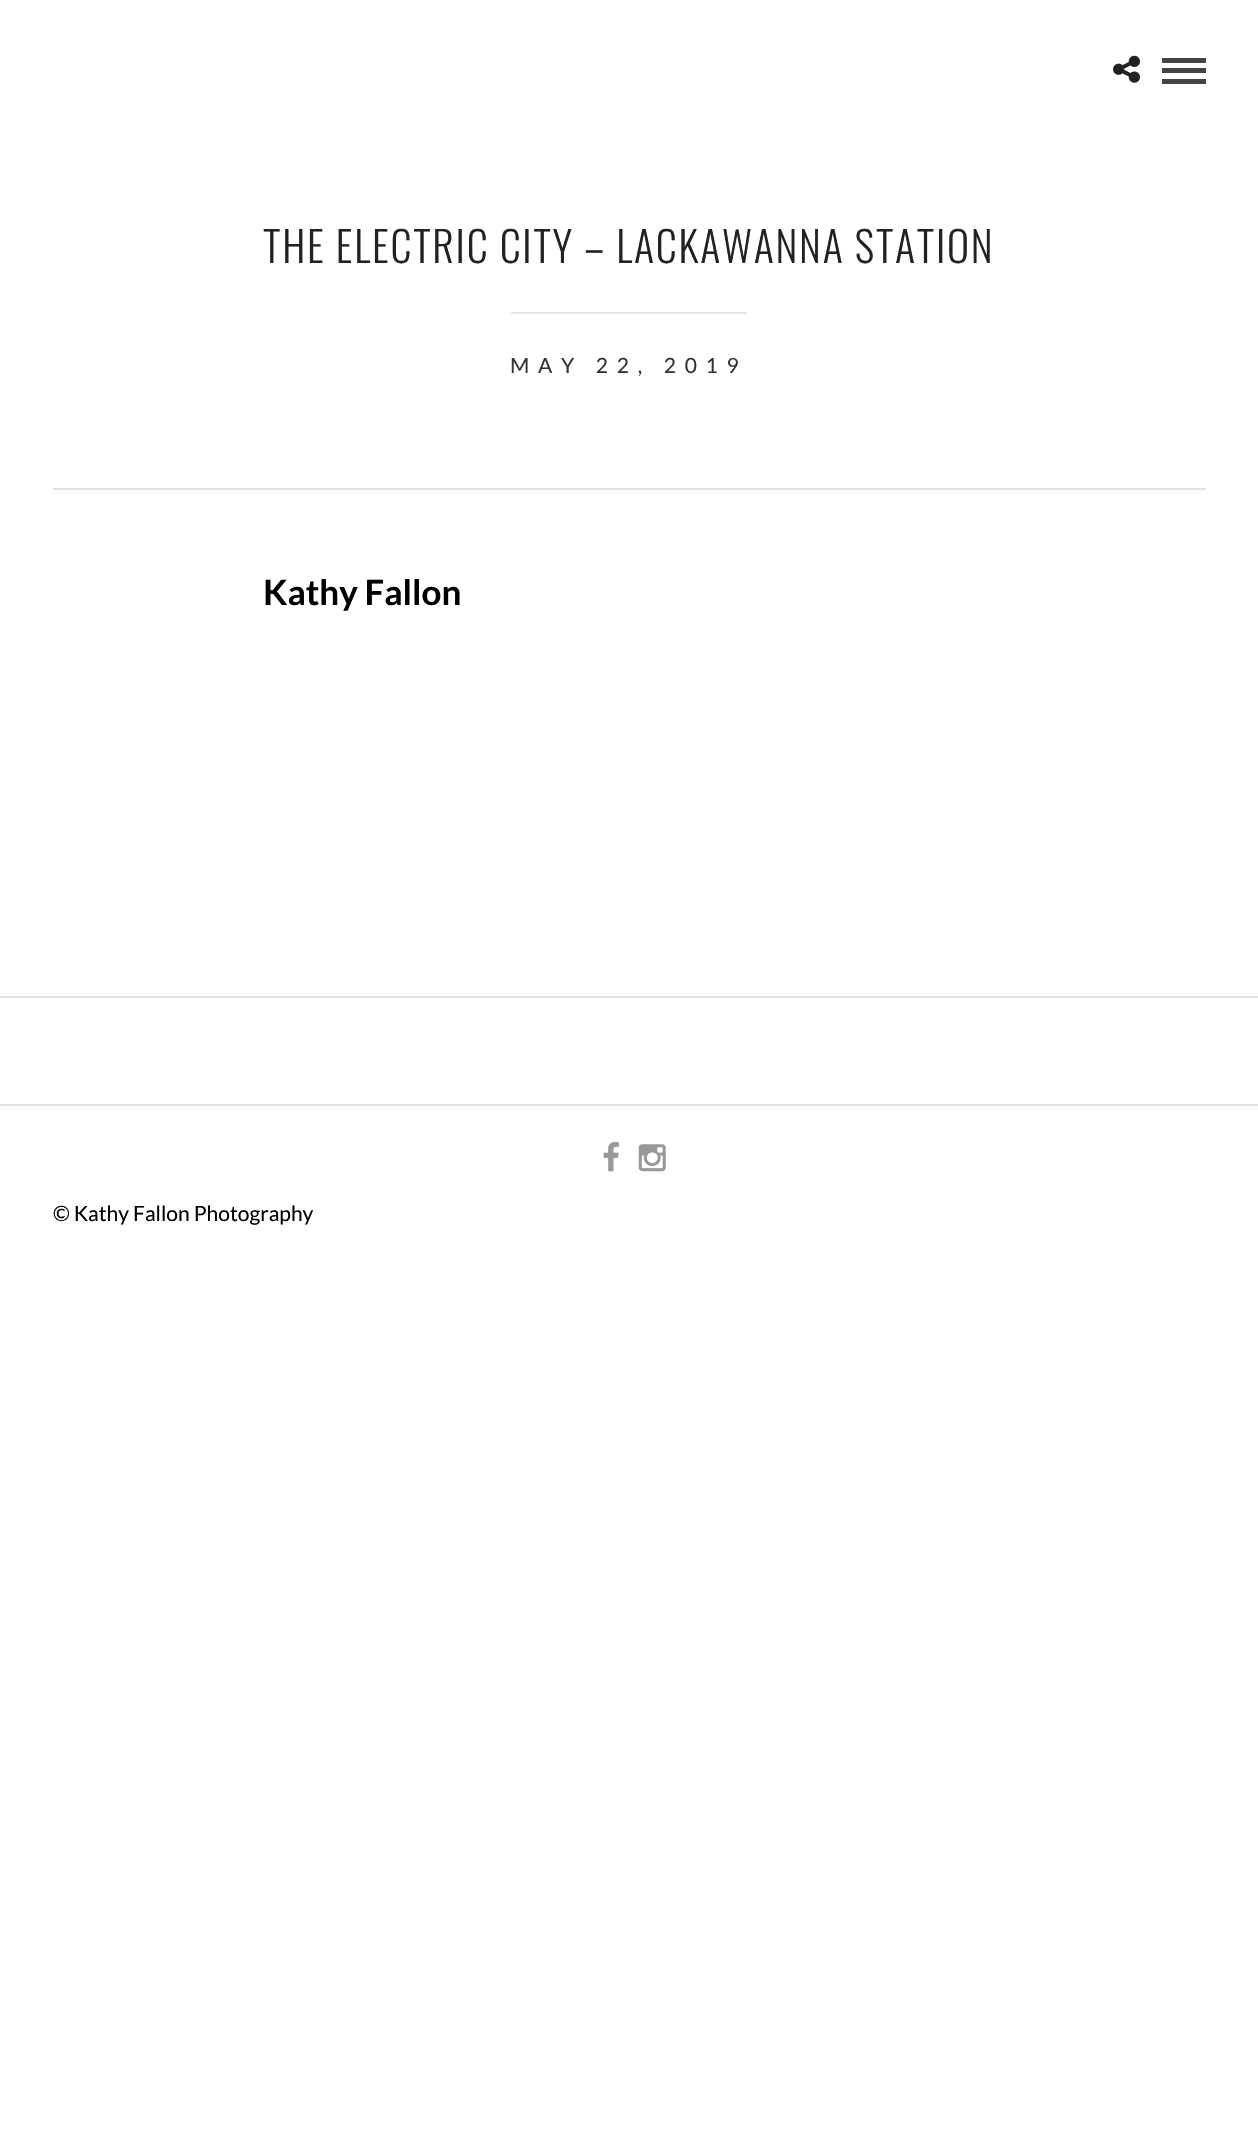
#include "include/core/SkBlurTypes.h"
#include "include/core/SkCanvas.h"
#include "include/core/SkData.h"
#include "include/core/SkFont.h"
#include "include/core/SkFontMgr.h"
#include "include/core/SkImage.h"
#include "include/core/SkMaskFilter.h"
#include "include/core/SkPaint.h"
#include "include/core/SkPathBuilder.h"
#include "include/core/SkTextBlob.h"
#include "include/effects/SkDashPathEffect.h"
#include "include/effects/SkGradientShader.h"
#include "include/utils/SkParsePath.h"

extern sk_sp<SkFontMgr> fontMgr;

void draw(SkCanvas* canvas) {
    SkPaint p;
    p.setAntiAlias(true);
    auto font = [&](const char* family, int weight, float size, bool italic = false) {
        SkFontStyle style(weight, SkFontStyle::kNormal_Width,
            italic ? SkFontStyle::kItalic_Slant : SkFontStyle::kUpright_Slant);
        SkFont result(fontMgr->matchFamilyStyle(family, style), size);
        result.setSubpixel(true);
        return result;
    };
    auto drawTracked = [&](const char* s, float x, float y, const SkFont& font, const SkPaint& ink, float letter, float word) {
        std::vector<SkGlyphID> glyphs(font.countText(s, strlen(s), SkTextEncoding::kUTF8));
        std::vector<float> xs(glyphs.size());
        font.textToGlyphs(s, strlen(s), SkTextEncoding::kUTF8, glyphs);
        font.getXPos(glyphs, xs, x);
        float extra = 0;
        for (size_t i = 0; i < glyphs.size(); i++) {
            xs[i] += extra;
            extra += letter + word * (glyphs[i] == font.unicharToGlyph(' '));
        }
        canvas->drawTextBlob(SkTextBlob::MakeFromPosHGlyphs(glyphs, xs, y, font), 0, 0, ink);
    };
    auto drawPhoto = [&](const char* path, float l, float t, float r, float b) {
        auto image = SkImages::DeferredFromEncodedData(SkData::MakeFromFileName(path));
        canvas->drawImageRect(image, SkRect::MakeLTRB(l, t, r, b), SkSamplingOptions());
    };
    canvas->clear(0xFFFFFFFF);
    drawPhoto("media/1.png", 1113, 55, 1140, 83);
    {
        const struct { float l, t, r, b; SkColor color; } items[] = {
            {1162, 58, 1206, 63, 0xFF444444},
            {1162, 68, 1206, 73, 0xFF444444},
            {1162, 79, 1206, 84, 0xFF444444},
        };
        for (auto [l, t, r, b, color] : items) {
            p.setColor(color);
            canvas->drawRect(SkRect::MakeLTRB(l, t, r, b), p);
        }
    }
    auto font1 = font("Oswald", 300, 42);
    p.setColor(0xFF222222);
    drawTracked("THE ELECTRIC CITY – LACKAWANNA STATION", 263, 263, font1, p, 1.75f, 0);
    p.setColor(0xFFE7E7E7);
    canvas->drawRect(SkRect::MakeLTRB(511, 312, 747, 314), p);
    auto font2 = font("Lato", 400, 21);
    p.setColor(0xFF333333);
    drawTracked("MAY 22, 2019", 510, 373, font2, p, 8.75f, 0);
    p.setColor(0xFFE1E1E1);
    canvas->drawRect(SkRect::MakeLTRB(53, 488, 1206, 490), p);
    auto font3 = font("Lato", 700, 35);
    p.setColor(0xFF000000);
    canvas->drawString("Kathy Fallon", 263, 605, font3, p);
    p.setColor(0xFFE1E1E1);
    canvas->drawRect(SkRect::MakeLTRB(0, 996, 1258, 998), p);
    canvas->drawRect(SkRect::MakeLTRB(0, 1104, 1258, 1106), p);
    drawPhoto("media/2.png", 603, 1142, 619, 1172);
    drawPhoto("media/3.png", 638, 1144, 666, 1172);
    p.setColor(0xFF000000);
    canvas->drawString("© Kathy Fallon Photography", 53, 1221, font2, p);
}
